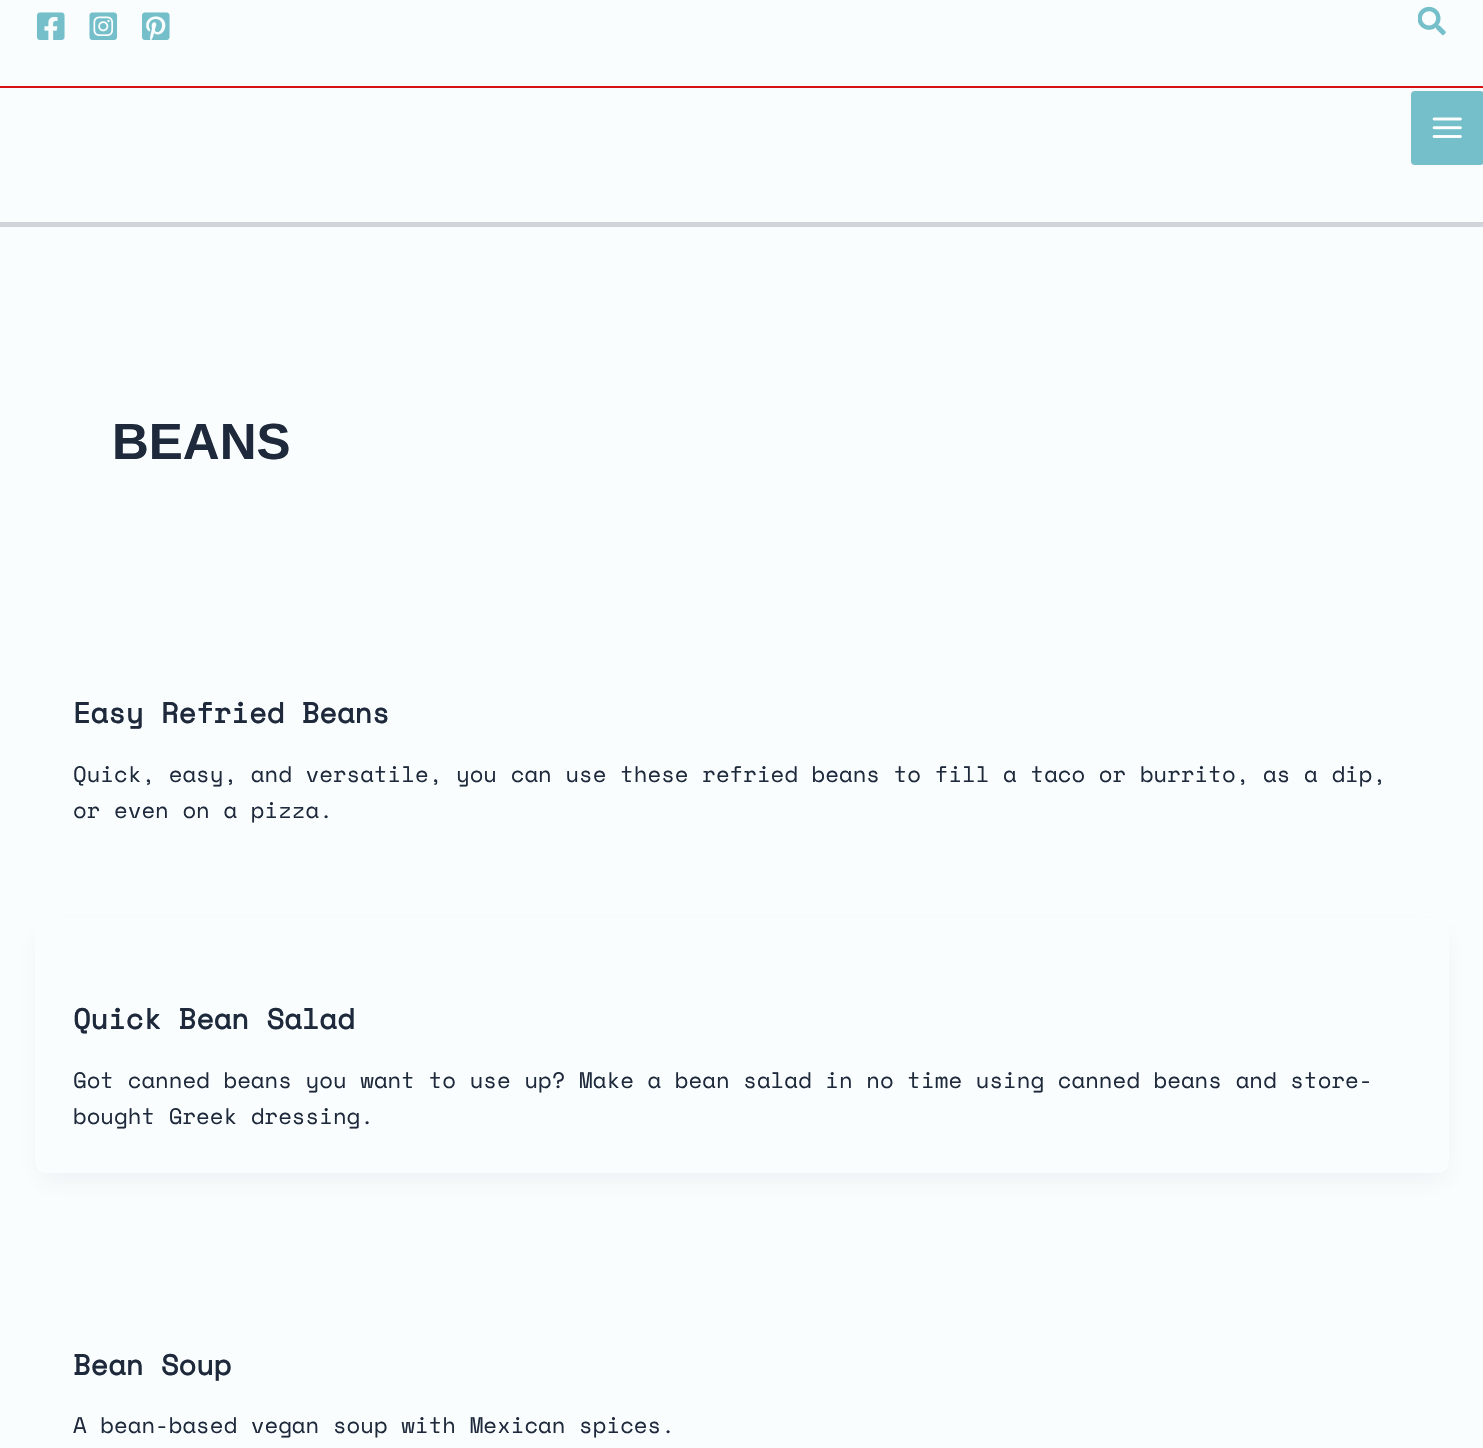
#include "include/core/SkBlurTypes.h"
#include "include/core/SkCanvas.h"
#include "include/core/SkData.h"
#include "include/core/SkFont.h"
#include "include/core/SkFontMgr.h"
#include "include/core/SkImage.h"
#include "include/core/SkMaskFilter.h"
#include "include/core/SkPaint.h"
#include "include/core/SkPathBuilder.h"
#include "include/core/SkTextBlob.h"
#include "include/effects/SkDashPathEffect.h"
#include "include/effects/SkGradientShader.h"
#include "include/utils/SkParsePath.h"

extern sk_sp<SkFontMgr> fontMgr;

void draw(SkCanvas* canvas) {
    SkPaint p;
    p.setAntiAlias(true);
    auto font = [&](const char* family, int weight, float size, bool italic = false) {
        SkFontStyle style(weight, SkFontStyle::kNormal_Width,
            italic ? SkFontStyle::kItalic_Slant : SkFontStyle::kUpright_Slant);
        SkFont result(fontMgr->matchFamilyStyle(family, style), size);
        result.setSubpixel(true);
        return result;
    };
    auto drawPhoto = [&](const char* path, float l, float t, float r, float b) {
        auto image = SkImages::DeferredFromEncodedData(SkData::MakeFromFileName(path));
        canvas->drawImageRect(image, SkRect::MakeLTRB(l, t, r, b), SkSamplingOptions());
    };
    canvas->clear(0xFFF9FDFE);
    p.setColor(0xFFD61212);
    canvas->drawRect(SkRect::MakeLTRB(0, 86, 1483, 88), p);
    drawPhoto("media/1.png", 36, 12, 65, 40);
    drawPhoto("media/2.png", 89, 12, 118, 40);
    drawPhoto("media/3.png", 141, 12, 170, 40);
    drawPhoto("media/4.png", 1418, 6, 1446, 36);
    p.setColor(0xFFD1D5DB);
    canvas->drawRect(SkRect::MakeLTRB(0, 222, 1483, 227), p);
    p.setColor(0xFF74BFC9);
    canvas->drawRoundRect(SkRect::MakeLTRB(1411, 91, 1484, 165), 4, 4, p);
    drawPhoto("media/5.png", 1432, 117, 1462, 138);
    auto font1 = font("Liberation Sans", 700, 51);
    p.setColor(0xFF1E293B);
    canvas->drawString("BEANS", 112, 459, font1, p);
    auto font2 = font("Space Mono", 700, 28.75f);
    canvas->drawString("Easy Refried Beans", 73, 723, font2, p);
    auto font3 = font("Space Mono", 400, 22.35f);
    canvas->drawString("Quick, easy, and versatile, you can use these refried beans to fill a taco or burrito, as a dip,", 73, 782, font3, p);
    canvas->drawString("or even on a pizza.", 73, 818, font3, p);
    p.setColor(0x0D101828);
    p.setMaskFilter(SkMaskFilter::MakeBlur(kNormal_SkBlurStyle, 13));
    canvas->drawRoundRect(SkRect::MakeLTRB(39, 933, 1446, 1180), 7, 7, p);
    p.setMaskFilter(nullptr);
    p.setColor(0xFFF9FDFE);
    canvas->drawRoundRect(SkRect::MakeLTRB(35, 919, 1449, 1173), 11, 11, p);
    p.setColor(0xFF1E293B);
    canvas->drawString("Quick Bean Salad", 73, 1029, font2, p);
    canvas->drawString("Got canned beans you want to use up? Make a bean salad in no time using canned beans and store-", 73, 1088, font3, p);
    canvas->drawString("bought Greek dressing.", 73, 1124, font3, p);
    canvas->drawString("Bean Soup", 73, 1375, font2, p);
    canvas->drawString("A bean-based vegan soup with Mexican spices.", 73, 1433, font3, p);
}
